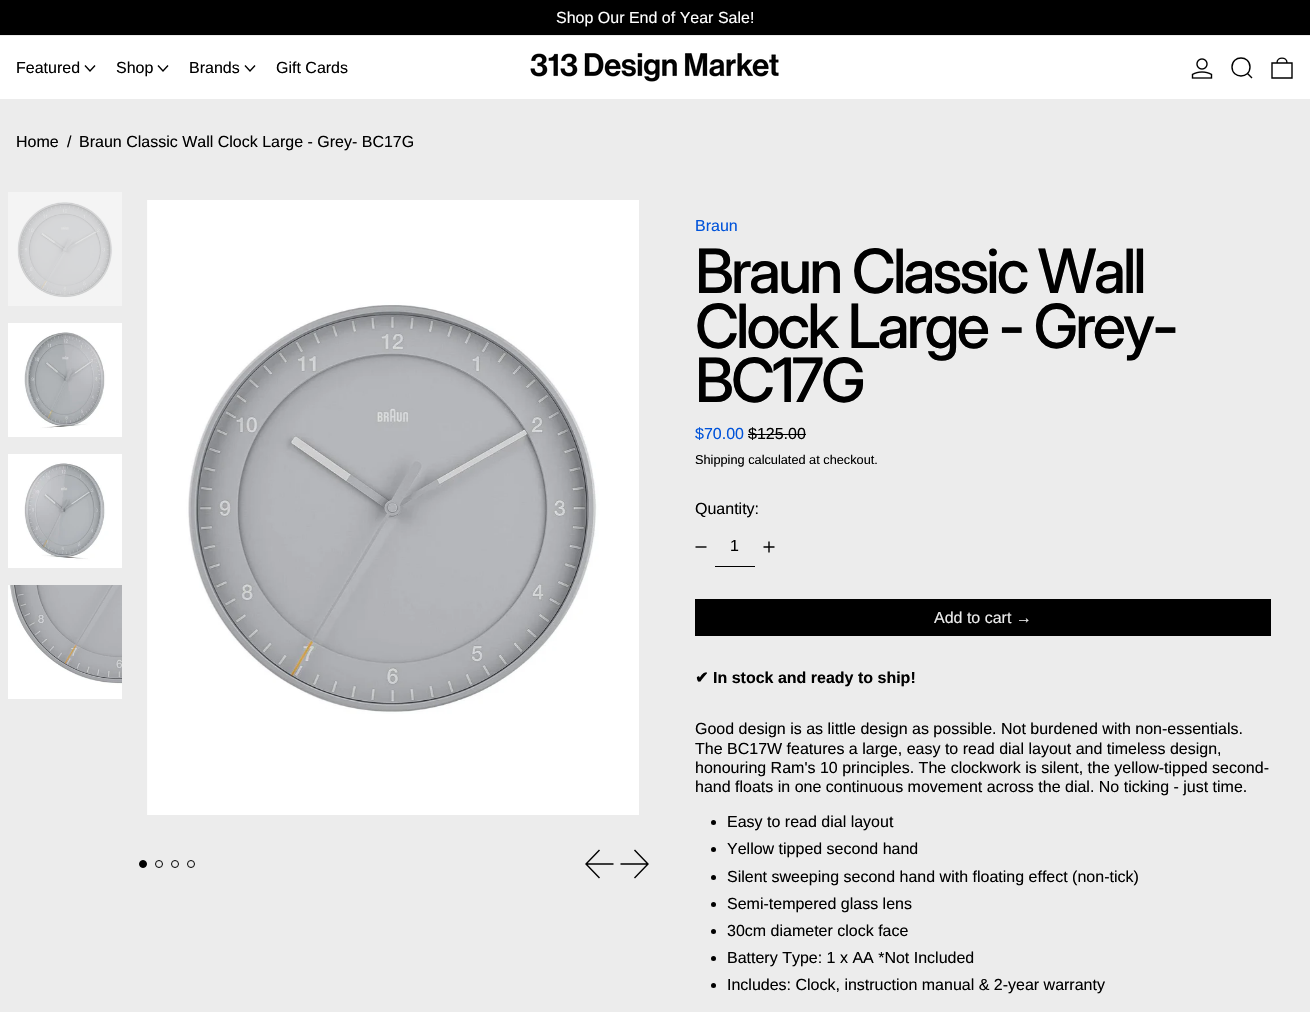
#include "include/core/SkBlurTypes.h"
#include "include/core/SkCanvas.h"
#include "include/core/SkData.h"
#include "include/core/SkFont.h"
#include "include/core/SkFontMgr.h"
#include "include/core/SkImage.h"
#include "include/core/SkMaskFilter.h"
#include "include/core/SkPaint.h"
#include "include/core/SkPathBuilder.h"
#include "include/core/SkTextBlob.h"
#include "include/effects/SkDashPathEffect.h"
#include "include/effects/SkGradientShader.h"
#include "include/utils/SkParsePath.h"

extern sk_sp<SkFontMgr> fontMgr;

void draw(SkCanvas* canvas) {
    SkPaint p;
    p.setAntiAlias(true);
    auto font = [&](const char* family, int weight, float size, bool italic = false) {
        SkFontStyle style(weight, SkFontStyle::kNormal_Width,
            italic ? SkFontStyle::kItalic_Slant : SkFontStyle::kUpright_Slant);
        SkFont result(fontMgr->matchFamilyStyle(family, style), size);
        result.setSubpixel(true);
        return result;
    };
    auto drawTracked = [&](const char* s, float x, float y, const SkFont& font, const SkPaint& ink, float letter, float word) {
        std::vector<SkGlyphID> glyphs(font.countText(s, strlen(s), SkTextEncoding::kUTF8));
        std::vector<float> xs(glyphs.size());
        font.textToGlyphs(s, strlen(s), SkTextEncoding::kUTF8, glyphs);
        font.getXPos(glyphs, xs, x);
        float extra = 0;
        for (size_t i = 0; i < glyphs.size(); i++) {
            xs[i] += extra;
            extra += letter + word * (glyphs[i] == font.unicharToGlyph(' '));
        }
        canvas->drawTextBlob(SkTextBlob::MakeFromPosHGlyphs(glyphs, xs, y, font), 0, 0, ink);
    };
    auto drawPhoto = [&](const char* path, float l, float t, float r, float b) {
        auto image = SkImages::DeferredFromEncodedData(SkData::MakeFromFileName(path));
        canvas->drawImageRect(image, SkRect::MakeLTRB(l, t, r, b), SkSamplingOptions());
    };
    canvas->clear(0xFFECECEC);
    p.setColor(0xFF000000);
    canvas->drawRect(SkRect::MakeLTRB(0, 0, 1310, 35), p);
    auto font1 = font("Liberation Sans", 400, 16);
    p.setColor(0xFFFFFFFF);
    canvas->drawString("Shop Our End of Year Sale!", 556, 23, font1, p);
    canvas->drawRect(SkRect::MakeLTRB(0, 36, 1310, 99), p);
    p.setColor(0xFF000000);
    canvas->drawString("Featured", 16, 73, font1, p);
    p.setStyle(SkPaint::kStroke_Style);
    p.setStrokeWidth(1.4f);
    canvas->drawPath(SkPathBuilder().moveTo(85, 65.5f).lineTo(90, 71).lineTo(95, 65.5f).detach(), p);
    p.setStyle(SkPaint::kFill_Style);
    canvas->drawString("Shop", 116, 73, font1, p);
    p.setStyle(SkPaint::kStroke_Style);
    canvas->drawPath(SkPathBuilder().moveTo(158, 65.5f).lineTo(163, 71).lineTo(168, 65.5f).detach(), p);
    p.setStyle(SkPaint::kFill_Style);
    canvas->drawString("Brands", 189, 73, font1, p);
    p.setStyle(SkPaint::kStroke_Style);
    canvas->drawPath(SkPathBuilder().moveTo(245, 65.5f).lineTo(250, 71).lineTo(255, 65.5f).detach(), p);
    p.setStyle(SkPaint::kFill_Style);
    canvas->drawString("Gift Cards", 276, 73, font1, p);
    drawPhoto("media/1.png", 530, 53, 779, 82);
    drawPhoto("media/2.png", 1191, 58, 1213, 79);
    p.setStyle(SkPaint::kStroke_Style);
    canvas->drawPath(SkPathBuilder().moveTo(1232, 67).cubicTo(1232, 79, 1250, 79, 1250, 67).cubicTo(1250, 55, 1232, 55, 1232, 67).close().moveTo(1247.5f, 73.5f).lineTo(1252, 78).detach(), p);
    canvas->drawPath(SkPathBuilder().moveTo(1272, 63).lineTo(1292, 63).lineTo(1292, 78).lineTo(1272, 78).close().moveTo(1287, 63).cubicTo(1287, 56.5f, 1277, 56.5f, 1277, 63).detach(), p);
    p.setStyle(SkPaint::kFill_Style);
    {
        const struct { const char* s; float x, y; } items[] = {
            {"Home", 16, 147},
            {"/", 67, 147},
            {"Braun Classic Wall Clock Large - Grey- BC17G", 79, 147},
        };
        for (auto [s, x, y] : items) {
            canvas->drawString(s, x, y, font1, p);
        }
    }
    drawPhoto("media/3.png", 8, 192, 122, 306);
    drawPhoto("media/4.png", 8, 323, 122, 437);
    drawPhoto("media/5.png", 8, 454, 122, 568);
    drawPhoto("media/6.png", 8, 585, 122, 699);
    drawPhoto("media/7.png", 147, 200, 639, 815);
    canvas->drawCircle(143, 864, 3.5f, p);
    p.setStyle(SkPaint::kStroke_Style);
    p.setStrokeWidth(1);
    canvas->drawCircle(143, 864, 3.5f, p);
    canvas->drawCircle(159, 864, 3.5f, p);
    canvas->drawCircle(175, 864, 3.5f, p);
    canvas->drawCircle(191, 864, 3.5f, p);
    p.setStrokeWidth(1.4f);
    canvas->drawPath(SkPathBuilder().moveTo(613.5f, 864).lineTo(586, 864).moveTo(599.5f, 878).lineTo(586, 864).lineTo(599.5f, 850).detach(), p);
    canvas->drawPath(SkPathBuilder().moveTo(620.5f, 864).lineTo(648, 864).moveTo(634.5f, 878).lineTo(648, 864).lineTo(634.5f, 850).detach(), p);
    p.setStyle(SkPaint::kFill_Style);
    p.setColor(0xFF0053DA);
    canvas->drawString("Braun", 695, 231, font1, p);
    auto font2 = font("Inter", 500, 61);
    p.setColor(0xFF000000);
    {
        const struct { const char* s; float x, y; } items[] = {
            {"Braun Classic Wall", 695, 293},
            {"Clock Large - Grey-", 695, 348},
            {"BC17G", 695, 402},
        };
        for (auto [s, x, y] : items) {
            drawTracked(s, x, y, font2, p, -3, 0);
        }
    }
    p.setColor(0xFF0053DA);
    canvas->drawString("$70.00", 695, 439, font1, p);
    p.setColor(0xFF000000);
    canvas->drawString("$125.00", 748, 439, font1, p);
    canvas->drawRect(SkRect::MakeLTRB(748, 434, 806, 435), p);
    auto font3 = font("Liberation Sans", 400, 12.75f);
    canvas->drawString("Shipping calculated at checkout.", 695, 464, font3, p);
    canvas->drawString("Quantity:", 695, 514, font1, p);
    p.setStyle(SkPaint::kStroke_Style);
    canvas->drawPath(SkPathBuilder().moveTo(695.5f, 547).lineTo(706.5f, 547).detach(), p);
    p.setStyle(SkPaint::kFill_Style);
    canvas->drawRect(SkRect::MakeLTRB(715, 566, 755, 567), p);
    canvas->drawString("1", 730, 551, font1, p);
    p.setStyle(SkPaint::kStroke_Style);
    canvas->drawPath(SkPathBuilder().moveTo(769, 541.5f).lineTo(769, 552.5f).moveTo(763.5f, 547).lineTo(774.5f, 547).detach(), p);
    p.setStyle(SkPaint::kFill_Style);
    canvas->drawRect(SkRect::MakeLTRB(695, 599, 1271, 636), p);
    p.setColor(0xFFECECEC);
    canvas->drawString("Add to cart →", 934, 623, font1, p);
    auto font4 = font("DejaVu Sans", 700, 16);
    p.setColor(0xFF000000);
    canvas->drawString("✔", 695, 683, font4, p);
    auto font5 = font("Liberation Sans", 700, 16);
    canvas->drawString("In stock and ready to ship!", 713, 683, font5, p);
    {
        const struct { const char* s; float x, y; } items[] = {
            {"Good design is as little design as possible. Not burdened with non-essentials.", 695, 734},
            {"The BC17W features a large, easy to read dial layout and timeless design,", 695, 754},
            {"honouring Ram's 10 principles. The clockwork is silent, the yellow-tipped second-", 695, 773},
            {"hand floats in one continuous movement across the dial. No ticking - just time.", 695, 792},
        };
        for (auto [s, x, y] : items) {
            canvas->drawString(s, x, y, font1, p);
        }
    }
    canvas->drawCircle(713.5f, 822.5f, 2.5f, p);
    canvas->drawString("Easy to read dial layout", 727, 827, font1, p);
    canvas->drawCircle(713.5f, 849.5f, 2.5f, p);
    canvas->drawString("Yellow tipped second hand", 727, 854, font1, p);
    canvas->drawCircle(713.5f, 877.5f, 2.5f, p);
    canvas->drawString("Silent sweeping second hand with floating effect (non-tick)", 727, 882, font1, p);
    canvas->drawCircle(713.5f, 904.5f, 2.5f, p);
    canvas->drawString("Semi-tempered glass lens", 727, 909, font1, p);
    canvas->drawCircle(713.5f, 931.5f, 2.5f, p);
    canvas->drawString("30cm diameter clock face", 727, 936, font1, p);
    canvas->drawCircle(713.5f, 958.5f, 2.5f, p);
    canvas->drawString("Battery Type: 1 x AA *Not Included", 727, 963, font1, p);
    canvas->drawCircle(713.5f, 985.5f, 2.5f, p);
    canvas->drawString("Includes: Clock, instruction manual & 2-year warranty", 727, 990, font1, p);
}
